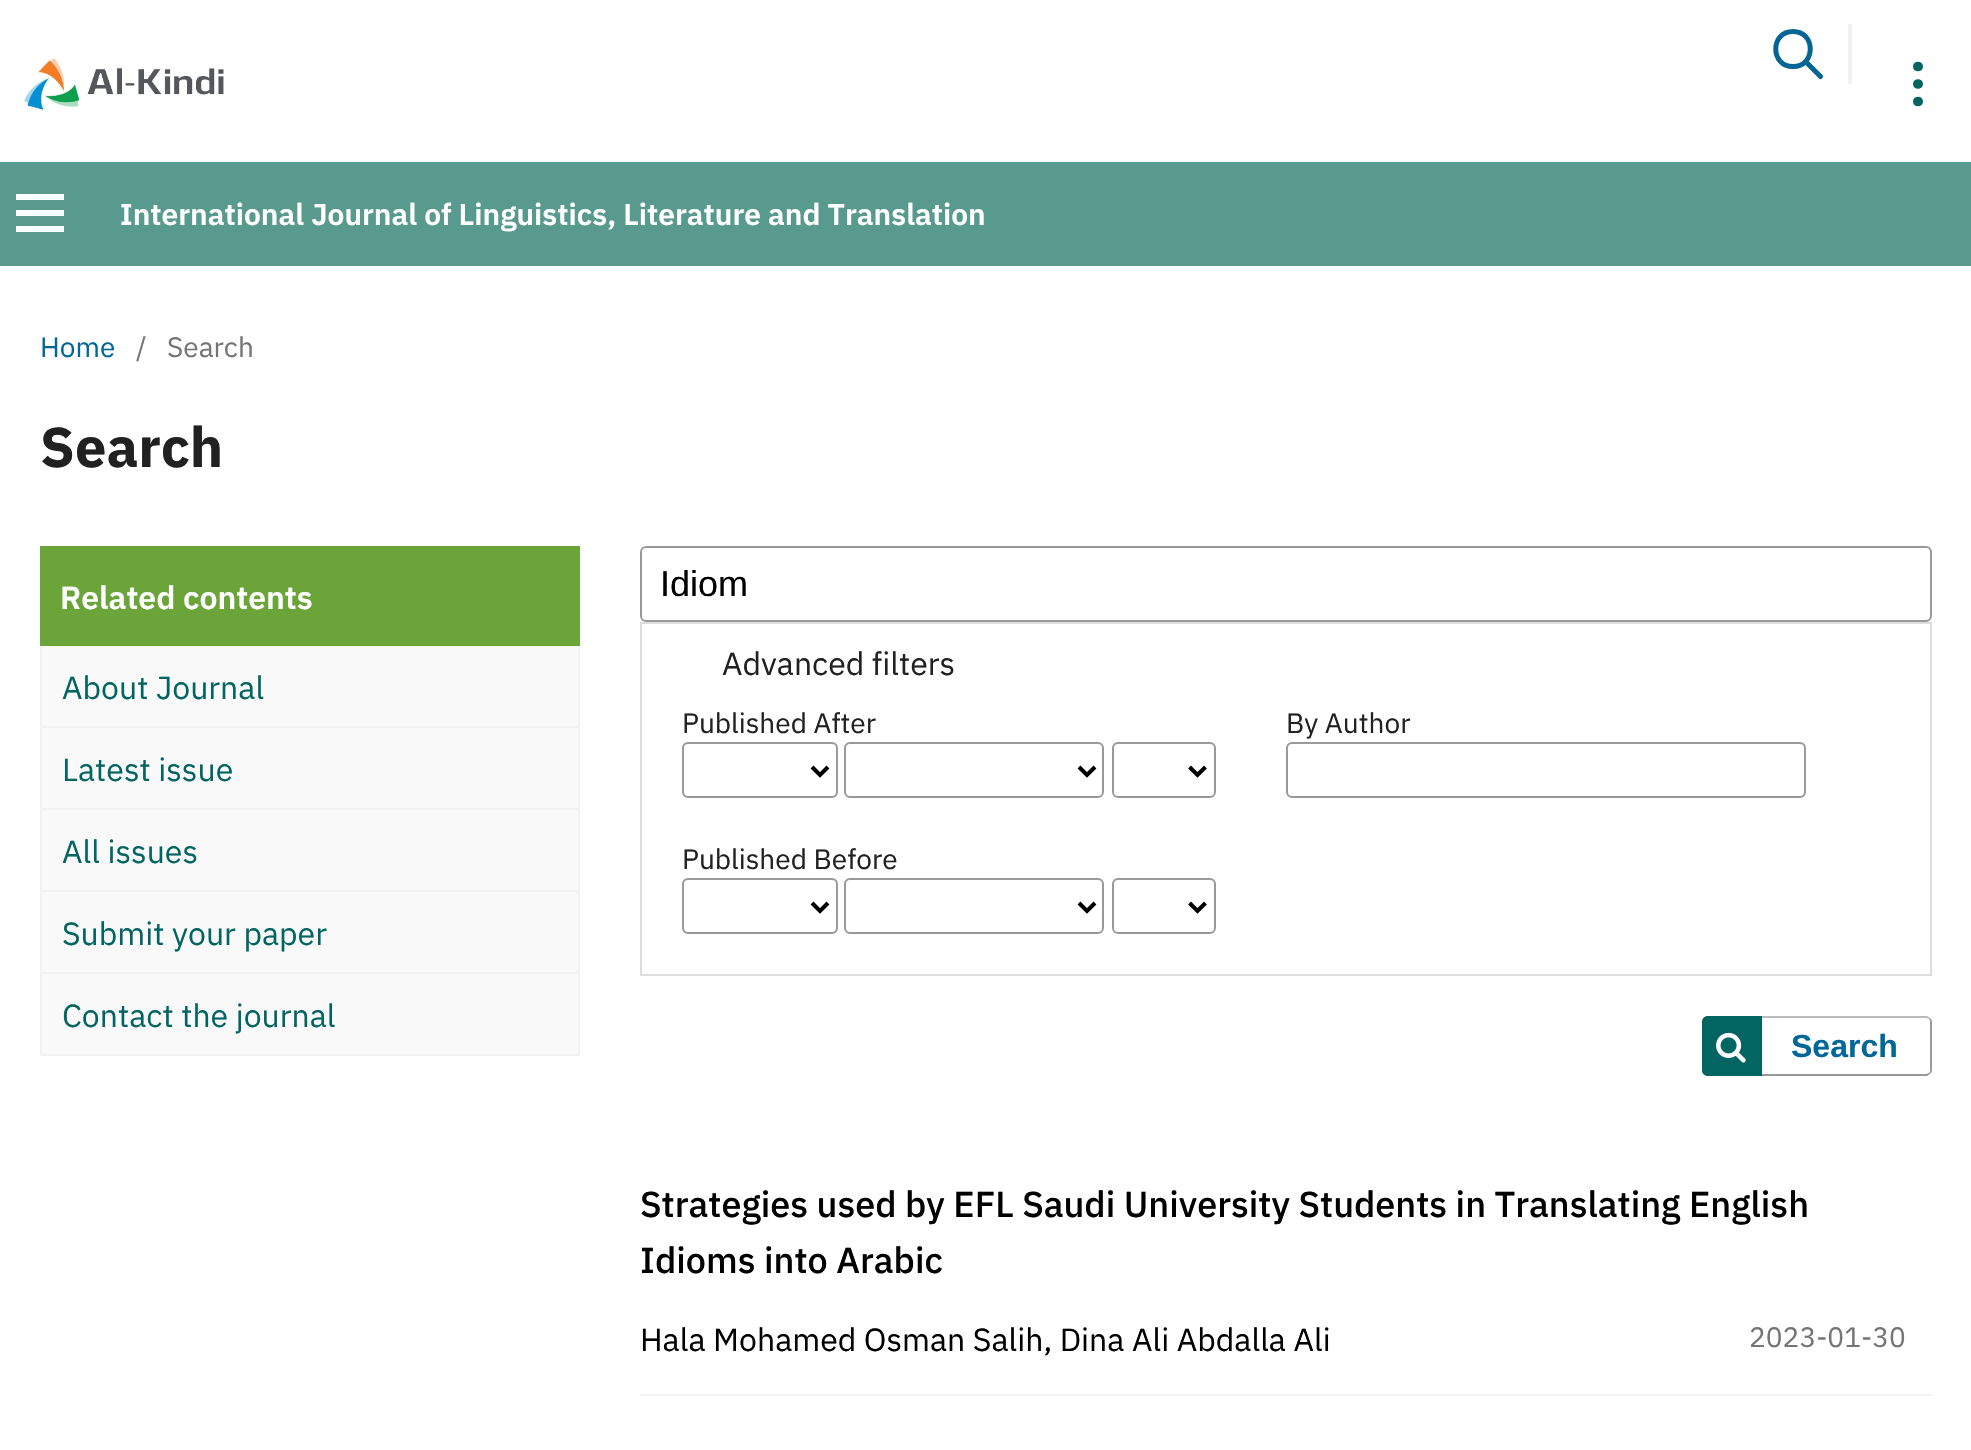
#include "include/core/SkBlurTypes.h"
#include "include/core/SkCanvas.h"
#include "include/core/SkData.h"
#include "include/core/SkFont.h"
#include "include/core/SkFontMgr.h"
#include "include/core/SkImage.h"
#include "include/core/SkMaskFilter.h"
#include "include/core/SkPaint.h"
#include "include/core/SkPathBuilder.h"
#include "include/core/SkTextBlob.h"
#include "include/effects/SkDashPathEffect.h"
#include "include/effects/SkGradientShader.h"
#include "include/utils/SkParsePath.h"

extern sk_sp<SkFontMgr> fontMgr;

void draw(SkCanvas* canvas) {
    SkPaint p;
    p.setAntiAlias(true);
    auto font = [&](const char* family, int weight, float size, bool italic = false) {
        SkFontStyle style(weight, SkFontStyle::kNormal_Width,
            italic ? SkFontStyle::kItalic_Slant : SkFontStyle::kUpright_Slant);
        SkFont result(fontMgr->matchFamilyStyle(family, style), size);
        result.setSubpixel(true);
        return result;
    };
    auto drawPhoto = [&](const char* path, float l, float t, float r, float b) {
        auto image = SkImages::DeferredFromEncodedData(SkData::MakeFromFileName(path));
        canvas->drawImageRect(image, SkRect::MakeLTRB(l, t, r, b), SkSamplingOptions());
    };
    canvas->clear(0xFFFFFFFF);
    drawPhoto("media/1.png", 24, 58, 224, 110);
    p.setColor(0xFFF2F2F2);
    canvas->drawRect(SkRect::MakeLTRB(1848, 24, 1852, 84), p);
    p.setStyle(SkPaint::kStroke_Style);
    p.setStrokeWidth(5);
    p.setStrokeCap(SkPaint::kRound_Cap);
    p.setStrokeJoin(SkPaint::kRound_Join);
    p.setColor(0xFF026594);
    canvas->drawPath(SkPathBuilder().moveTo(1805.5f, 61.5f).lineTo(1820.5f, 76.5f).moveTo(1793, 66.5f).cubicTo(1770, 66.5f, 1770, 31.5f, 1793, 31.5f).cubicTo(1816, 31.5f, 1816, 66.5f, 1793, 66.5f).close().detach(), p);
    p.setColor(0xFF026562);
    canvas->drawPath(SkPathBuilder().moveTo(1920.5f, 66.5f).cubicTo(1920.5f, 63.5f, 1915.5f, 63.5f, 1915.5f, 66.5f).cubicTo(1915.5f, 69.5f, 1920.5f, 69.5f, 1920.5f, 66.5f).close().moveTo(1920.5f, 84).cubicTo(1920.5f, 81, 1915.5f, 81, 1915.5f, 84).cubicTo(1915.5f, 87, 1920.5f, 87, 1920.5f, 84).close().moveTo(1920.5f, 101.5f).cubicTo(1920.5f, 98.5f, 1915.5f, 98.5f, 1915.5f, 101.5f).cubicTo(1915.5f, 104.5f, 1920.5f, 104.5f, 1920.5f, 101.5f).close().detach(), p);
    p.setStyle(SkPaint::kFill_Style);
    {
        const struct { float l, t, r, b; SkColor color; } items[] = {
            {0, 162, 1971, 266, 0xFF589A8D},
            {16, 226, 64, 232, 0xFFFFFFFF},
            {16, 194, 64, 200, 0xFFFFFFFF},
            {16, 210, 64, 216, 0xFFFFFFFF},
        };
        for (auto [l, t, r, b, color] : items) {
            p.setColor(color);
            canvas->drawRect(SkRect::MakeLTRB(l, t, r, b), p);
        }
    }
    auto font1 = font("IBM Plex Sans", 600, 30);
    canvas->drawString("International Journal of Linguistics, Literature and Translation", 120, 225, font1, p);
    auto font2 = font("IBM Plex Sans", 400, 28);
    p.setColor(0xFF006798);
    canvas->drawString("Home", 40, 357, font2, p);
    p.setColor(0xFF757575);
    canvas->drawString("/", 136, 357, font2, p);
    canvas->drawString("Search", 167, 357, font2, p);
    auto font3 = font("IBM Plex Sans", 700, 56);
    p.setColor(0xFF212121);
    canvas->drawString("Search", 40, 467, font3, p);
    p.setColor(0xFF6BA439);
    canvas->drawRect(SkRect::MakeLTRB(40, 546, 580, 646), p);
    auto font4 = font("IBM Plex Sans", 600, 32);
    p.setColor(0xFFFFFFFF);
    canvas->drawString("Related contents", 60, 609, font4, p);
    {
        const struct { float l, t, r, b; SkColor color; } items[] = {
            {42, 646, 578, 726, 0xFFF9F9F9},
            {578, 646, 580, 1056, 0xFFF2F2F2},
            {40, 726, 580, 728, 0xFFF2F2F2},
            {40, 646, 42, 728, 0xFFF2F2F2},
        };
        for (auto [l, t, r, b, color] : items) {
            p.setColor(color);
            canvas->drawRect(SkRect::MakeLTRB(l, t, r, b), p);
        }
    }
    auto font5 = font("IBM Plex Sans", 400, 32);
    p.setColor(0xFF026562);
    canvas->drawString("About Journal", 62, 699, font5, p);
    {
        const struct { float l, t, r, b; SkColor color; } items[] = {
            {42, 728, 578, 808, 0xFFF9F9F9},
            {40, 808, 580, 810, 0xFFF2F2F2},
            {40, 728, 42, 810, 0xFFF2F2F2},
        };
        for (auto [l, t, r, b, color] : items) {
            p.setColor(color);
            canvas->drawRect(SkRect::MakeLTRB(l, t, r, b), p);
        }
    }
    p.setColor(0xFF026562);
    canvas->drawString("Latest issue", 62, 781, font5, p);
    {
        const struct { float l, t, r, b; SkColor color; } items[] = {
            {42, 810, 578, 890, 0xFFF9F9F9},
            {40, 890, 580, 892, 0xFFF2F2F2},
            {40, 810, 42, 892, 0xFFF2F2F2},
        };
        for (auto [l, t, r, b, color] : items) {
            p.setColor(color);
            canvas->drawRect(SkRect::MakeLTRB(l, t, r, b), p);
        }
    }
    p.setColor(0xFF026562);
    canvas->drawString("All issues", 62, 863, font5, p);
    {
        const struct { float l, t, r, b; SkColor color; } items[] = {
            {42, 892, 578, 972, 0xFFF9F9F9},
            {40, 972, 580, 974, 0xFFF2F2F2},
            {40, 892, 42, 974, 0xFFF2F2F2},
        };
        for (auto [l, t, r, b, color] : items) {
            p.setColor(color);
            canvas->drawRect(SkRect::MakeLTRB(l, t, r, b), p);
        }
    }
    p.setColor(0xFF026562);
    canvas->drawString("Submit your paper", 62, 945, font5, p);
    {
        const struct { float l, t, r, b; SkColor color; } items[] = {
            {42, 974, 578, 1054, 0xFFF9F9F9},
            {40, 1054, 580, 1056, 0xFFF2F2F2},
            {40, 974, 42, 1056, 0xFFF2F2F2},
        };
        for (auto [l, t, r, b, color] : items) {
            p.setColor(color);
            canvas->drawRect(SkRect::MakeLTRB(l, t, r, b), p);
        }
    }
    p.setColor(0xFF026562);
    canvas->drawString("Contact the journal", 62, 1027, font5, p);
    p.setStyle(SkPaint::kStroke_Style);
    p.setStrokeWidth(2);
    p.setStrokeCap(SkPaint::kButt_Cap);
    p.setStrokeJoin(SkPaint::kMiter_Join);
    p.setColor(0xFF999999);
    canvas->drawRoundRect(SkRect::MakeLTRB(641, 547, 1931, 621), 5, 5, p);
    auto font6 = font("Liberation Sans", 400, 36);
    p.setStyle(SkPaint::kFill_Style);
    p.setColor(0xFF000000);
    canvas->drawString("Idiom", 660, 596, font6, p);
    p.setStyle(SkPaint::kStroke_Style);
    p.setColor(0xFFDDDDDD);
    canvas->drawRect(SkRect::MakeLTRB(641, 623, 1931, 975), p);
    p.setStyle(SkPaint::kFill_Style);
    p.setColor(0xFF212121);
    canvas->drawString("Advanced filters", 722, 675, font5, p);
    canvas->drawString("Published After", 682, 733, font2, p);
    p.setStyle(SkPaint::kStroke_Style);
    p.setColor(0xFF999999);
    canvas->drawRoundRect(SkRect::MakeLTRB(683, 743, 837, 797), 5, 5, p);
    p.setStrokeWidth(4);
    p.setColor(0xFF000000);
    canvas->drawPath(SkPathBuilder().moveTo(812, 767).lineTo(820, 775).lineTo(828, 767).detach(), p);
    p.setStrokeWidth(2);
    p.setColor(0xFF999999);
    canvas->drawRoundRect(SkRect::MakeLTRB(845, 743, 1103, 797), 5, 5, p);
    p.setStrokeWidth(4);
    p.setColor(0xFF000000);
    canvas->drawPath(SkPathBuilder().moveTo(1079, 767).lineTo(1087, 775).lineTo(1095, 767).detach(), p);
    p.setStrokeWidth(2);
    p.setColor(0xFF999999);
    canvas->drawRoundRect(SkRect::MakeLTRB(1113, 743, 1215, 797), 5, 5, p);
    p.setStrokeWidth(4);
    p.setColor(0xFF000000);
    canvas->drawPath(SkPathBuilder().moveTo(1189.5f, 767).lineTo(1197.5f, 775).lineTo(1205.5f, 767).detach(), p);
    p.setStyle(SkPaint::kFill_Style);
    p.setColor(0xFF212121);
    canvas->drawString("Published Before", 682, 869, font2, p);
    p.setStyle(SkPaint::kStroke_Style);
    p.setStrokeWidth(2);
    p.setColor(0xFF999999);
    canvas->drawRoundRect(SkRect::MakeLTRB(683, 879, 837, 933), 5, 5, p);
    p.setStrokeWidth(4);
    p.setColor(0xFF000000);
    canvas->drawPath(SkPathBuilder().moveTo(812, 903).lineTo(820, 911).lineTo(828, 903).detach(), p);
    p.setStrokeWidth(2);
    p.setColor(0xFF999999);
    canvas->drawRoundRect(SkRect::MakeLTRB(845, 879, 1103, 933), 5, 5, p);
    p.setStrokeWidth(4);
    p.setColor(0xFF000000);
    canvas->drawPath(SkPathBuilder().moveTo(1079, 903).lineTo(1087, 911).lineTo(1095, 903).detach(), p);
    p.setStrokeWidth(2);
    p.setColor(0xFF999999);
    canvas->drawRoundRect(SkRect::MakeLTRB(1113, 879, 1215, 933), 5, 5, p);
    p.setStrokeWidth(4);
    p.setColor(0xFF000000);
    canvas->drawPath(SkPathBuilder().moveTo(1189.5f, 903).lineTo(1197.5f, 911).lineTo(1205.5f, 903).detach(), p);
    p.setStyle(SkPaint::kFill_Style);
    p.setColor(0xFF212121);
    canvas->drawString("By Author", 1286, 733, font2, p);
    p.setStyle(SkPaint::kStroke_Style);
    p.setStrokeWidth(2);
    p.setColor(0xFF999999);
    canvas->drawRoundRect(SkRect::MakeLTRB(1287, 743, 1805, 797), 5, 5, p);
    p.setStyle(SkPaint::kFill_Style);
    p.setColor(0xFFBBBBBB);
    canvas->drawPath(SkPathBuilder().moveTo(1708, 1016).cubicTo(1705, 1016, 1702, 1019, 1702, 1022).cubicTo(1702, 1014, 1732, 1018, 1744, 1018).lineTo(1926, 1018).lineTo(1929, 1019).lineTo(1930, 1018).cubicTo(1929, 1017, 1928, 1016, 1926, 1016).close().detach(), p);
    p.setColor(0x66000000);
    canvas->drawPath(SkPathBuilder().moveTo(1929, 1073).cubicTo(1930, 1072, 1930, 1071, 1930, 1070).lineTo(1930, 1022).cubicTo(1930, 1021, 1930, 1020, 1929, 1019).lineTo(1930, 1018).cubicTo(1931, 1019, 1932, 1020, 1932, 1022).lineTo(1932, 1070).cubicTo(1932, 1072, 1931, 1073, 1930, 1074).close().detach(), p);
    canvas->drawPath(SkPathBuilder().moveTo(1708, 1076).lineTo(1927, 1076).lineTo(1930, 1074).lineTo(1929, 1073).lineTo(1926, 1074).lineTo(1744, 1074).cubicTo(1732, 1074, 1702, 1078, 1702, 1070).cubicTo(1702, 1073, 1705, 1076, 1708, 1076).close().detach(), p);
    p.setColor(0xFF026562);
    canvas->drawPath(SkPathBuilder().moveTo(1708, 1016).lineTo(1762, 1016).lineTo(1762, 1076).lineTo(1708, 1076).cubicTo(1704.5f, 1076, 1702, 1073.5f, 1702, 1070).lineTo(1702, 1022).cubicTo(1702, 1018.5f, 1704.5f, 1016, 1708, 1016).close().detach(), p);
    drawPhoto("media/2.png", 1716, 1032, 1746, 1063);
    auto font7 = font("Liberation Sans", 700, 32);
    p.setColor(0xFF006798);
    canvas->drawString("Search", 1791, 1057, font7, p);
    p.setColor(0xFFF2F2F2);
    canvas->drawRect(SkRect::MakeLTRB(640, 1394, 1932, 1396), p);
    auto font8 = font("IBM Plex Sans", 500, 36);
    p.setColor(0xFF000000);
    canvas->drawString("Strategies used by EFL Saudi University Students in Translating English", 640, 1217, font8, p);
    canvas->drawString("Idioms into Arabic", 640, 1273, font8, p);
    canvas->drawString("Hala Mohamed Osman Salih, Dina Ali Abdalla Ali", 640, 1351, font5, p);
    p.setColor(0xFF757575);
    canvas->drawString("2023-01-30", 1749, 1347, font2, p);
}
